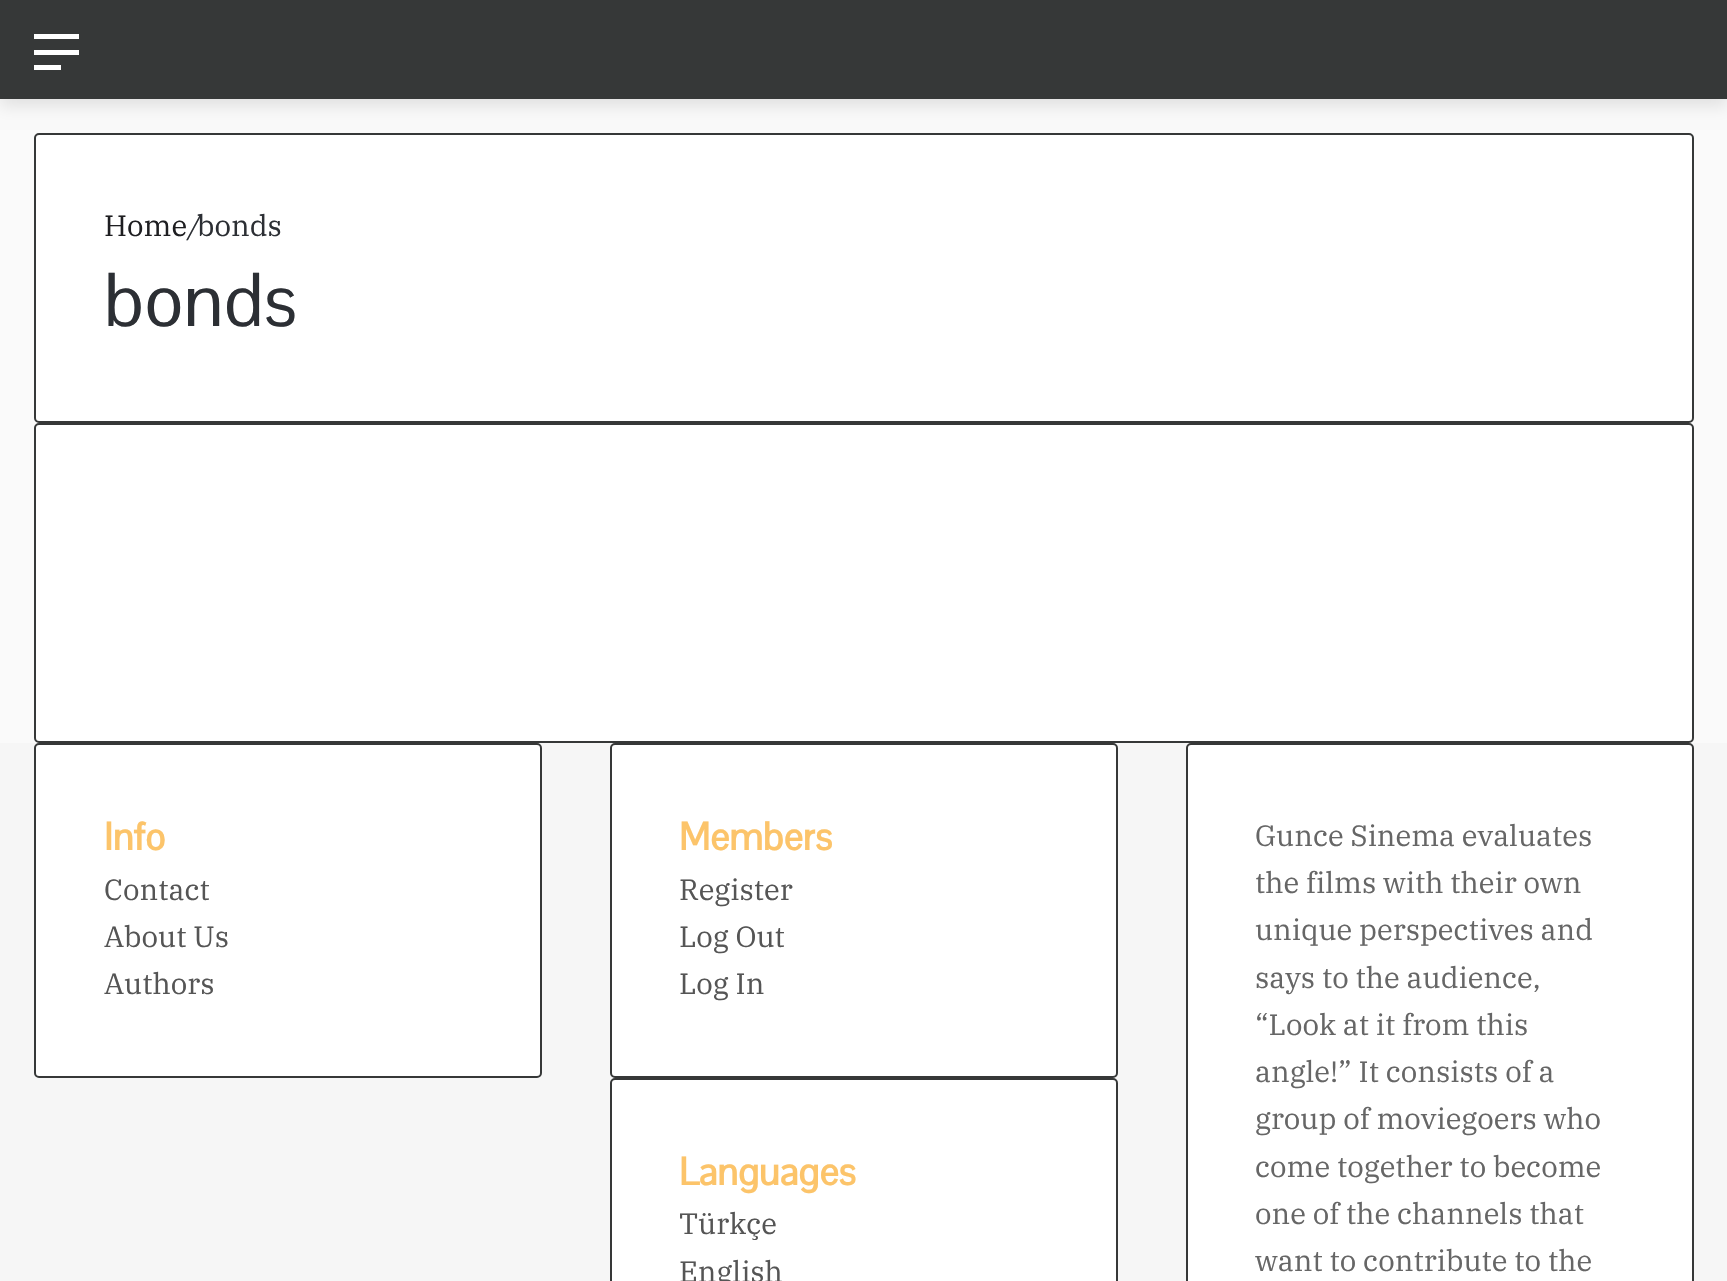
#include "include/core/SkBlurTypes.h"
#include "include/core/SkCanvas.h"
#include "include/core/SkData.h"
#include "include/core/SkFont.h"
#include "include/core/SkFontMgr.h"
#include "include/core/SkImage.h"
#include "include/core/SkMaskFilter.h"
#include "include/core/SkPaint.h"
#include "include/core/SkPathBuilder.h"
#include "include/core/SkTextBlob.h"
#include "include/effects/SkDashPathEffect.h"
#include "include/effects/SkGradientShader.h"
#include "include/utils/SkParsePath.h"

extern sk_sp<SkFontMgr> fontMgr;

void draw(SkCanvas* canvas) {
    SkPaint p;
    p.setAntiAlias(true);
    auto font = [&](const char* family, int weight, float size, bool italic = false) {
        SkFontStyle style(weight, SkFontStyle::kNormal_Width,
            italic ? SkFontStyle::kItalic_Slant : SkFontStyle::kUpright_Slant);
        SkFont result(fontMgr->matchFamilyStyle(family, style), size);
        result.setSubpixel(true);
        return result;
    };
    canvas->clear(0xFFFAFAFA);
    p.setColor(0x1A000000);
    p.setMaskFilter(SkMaskFilter::MakeBlur(kNormal_SkBlurStyle, 8));
    canvas->drawRect(SkRect::MakeLTRB(0, 7, 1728, 106), p);
    p.setMaskFilter(nullptr);
    {
        const struct { float l, t, r, b; SkColor color; } items[] = {
            {0, 0, 1727, 99, 0xFF363838},
            {34, 50, 79, 55, 0xFFFFFFFF},
            {34, 34, 79, 39, 0xFFFFFFFF},
            {34, 65, 61, 70, 0xFFFFFFFF},
        };
        for (auto [l, t, r, b, color] : items) {
            p.setColor(color);
            canvas->drawRect(SkRect::MakeLTRB(l, t, r, b), p);
        }
    }
    canvas->drawRoundRect(SkRect::MakeLTRB(35, 134, 1693, 422), 4, 4, p);
    p.setStyle(SkPaint::kStroke_Style);
    p.setStrokeWidth(2);
    p.setColor(0xFF363838);
    canvas->drawRoundRect(SkRect::MakeLTRB(35, 134, 1693, 422), 4, 4, p);
    auto font1 = font("IBM Plex Serif", 400, 29.25f);
    p.setStyle(SkPaint::kFill_Style);
    p.setColor(0xFF1E1E21);
    canvas->drawString("Home", 104, 236, font1, p);
    auto font2 = font("IBM Plex Serif", 400, 29.25f, true);
    p.setColor(0xFF2C2F34);
    canvas->drawString("/", 187, 236, font2, p);
    canvas->drawString("bonds", 197, 236, font1, p);
    auto font3 = font("Pontano Sans", 400, 74);
    canvas->drawString("bonds", 104, 326, font3, p);
    p.setColor(0xFFFFFFFF);
    canvas->drawRoundRect(SkRect::MakeLTRB(35, 424, 1693, 742), 4, 4, p);
    p.setStyle(SkPaint::kStroke_Style);
    p.setColor(0xFF363838);
    canvas->drawRoundRect(SkRect::MakeLTRB(35, 424, 1693, 742), 4, 4, p);
    p.setStyle(SkPaint::kFill_Style);
    p.setColor(0xFFF6F6F6);
    canvas->drawRect(SkRect::MakeLTRB(0, 743, 1727, 1281), p);
    p.setColor(0xFFFFFFFF);
    canvas->drawRoundRect(SkRect::MakeLTRB(35, 744, 541, 1077), 4, 4, p);
    p.setStyle(SkPaint::kStroke_Style);
    p.setColor(0xFF363838);
    canvas->drawRoundRect(SkRect::MakeLTRB(35, 744, 541, 1077), 4, 4, p);
    auto font4 = font("Pontano Sans", 700, 38.25f);
    p.setStyle(SkPaint::kFill_Style);
    p.setColor(0xFFFCC46A);
    canvas->drawString("Info", 104, 850, font4, p);
    p.setColor(0xFF555555);
    {
        const struct { const char* s; float x, y; } items[] = {
            {"Contact", 104, 900},
            {"About Us", 104, 947},
            {"Authors", 104, 994},
        };
        for (auto [s, x, y] : items) {
            canvas->drawString(s, x, y, font1, p);
        }
    }
    p.setColor(0xFFFFFFFF);
    canvas->drawRoundRect(SkRect::MakeLTRB(611, 744, 1117, 1077), 4, 4, p);
    p.setStyle(SkPaint::kStroke_Style);
    p.setColor(0xFF363838);
    canvas->drawRoundRect(SkRect::MakeLTRB(611, 744, 1117, 1077), 4, 4, p);
    p.setStyle(SkPaint::kFill_Style);
    p.setColor(0xFFFCC46A);
    canvas->drawString("Members", 679, 850, font4, p);
    p.setColor(0xFF555555);
    {
        const struct { const char* s; float x, y; } items[] = {
            {"Register", 679, 900},
            {"Log Out", 679, 947},
            {"Log In", 679, 994},
        };
        for (auto [s, x, y] : items) {
            canvas->drawString(s, x, y, font1, p);
        }
    }
    p.setColor(0xFFFFFFFF);
    canvas->drawRoundRect(SkRect::MakeLTRB(611, 1079, 1117, 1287), 4, 4, p);
    p.setStyle(SkPaint::kStroke_Style);
    p.setColor(0xFF363838);
    canvas->drawRoundRect(SkRect::MakeLTRB(611, 1079, 1117, 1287), 4, 4, p);
    p.setStyle(SkPaint::kFill_Style);
    p.setColor(0xFFFCC46A);
    canvas->drawString("Languages", 679, 1185, font4, p);
    p.setColor(0xFF555555);
    canvas->drawString("Türkçe", 679, 1234, font1, p);
    canvas->drawString("English", 679, 1282, font1, p);
    p.setColor(0xFFFFFFFF);
    canvas->drawRoundRect(SkRect::MakeLTRB(1187, 744, 1693, 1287), 4, 4, p);
    p.setStyle(SkPaint::kStroke_Style);
    p.setColor(0xFF363838);
    canvas->drawRoundRect(SkRect::MakeLTRB(1187, 744, 1693, 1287), 4, 4, p);
    p.setStyle(SkPaint::kFill_Style);
    p.setColor(0xFF666666);
    {
        const struct { const char* s; float x, y; } items[] = {
            {"Gunce Sinema evaluates", 1255, 846},
            {"the films with their own", 1255, 893},
            {"unique perspectives and", 1255, 940},
            {"says to the audience,", 1255, 988},
            {"“Look at it from this", 1255, 1035},
            {"angle!” It consists of a", 1255, 1082},
            {"group of moviegoers who", 1255, 1129},
            {"come together to become", 1255, 1177},
            {"one of the channels that", 1255, 1224},
            {"want to contribute to the", 1255, 1271},
        };
        for (auto [s, x, y] : items) {
            canvas->drawString(s, x, y, font1, p);
        }
    }
}
